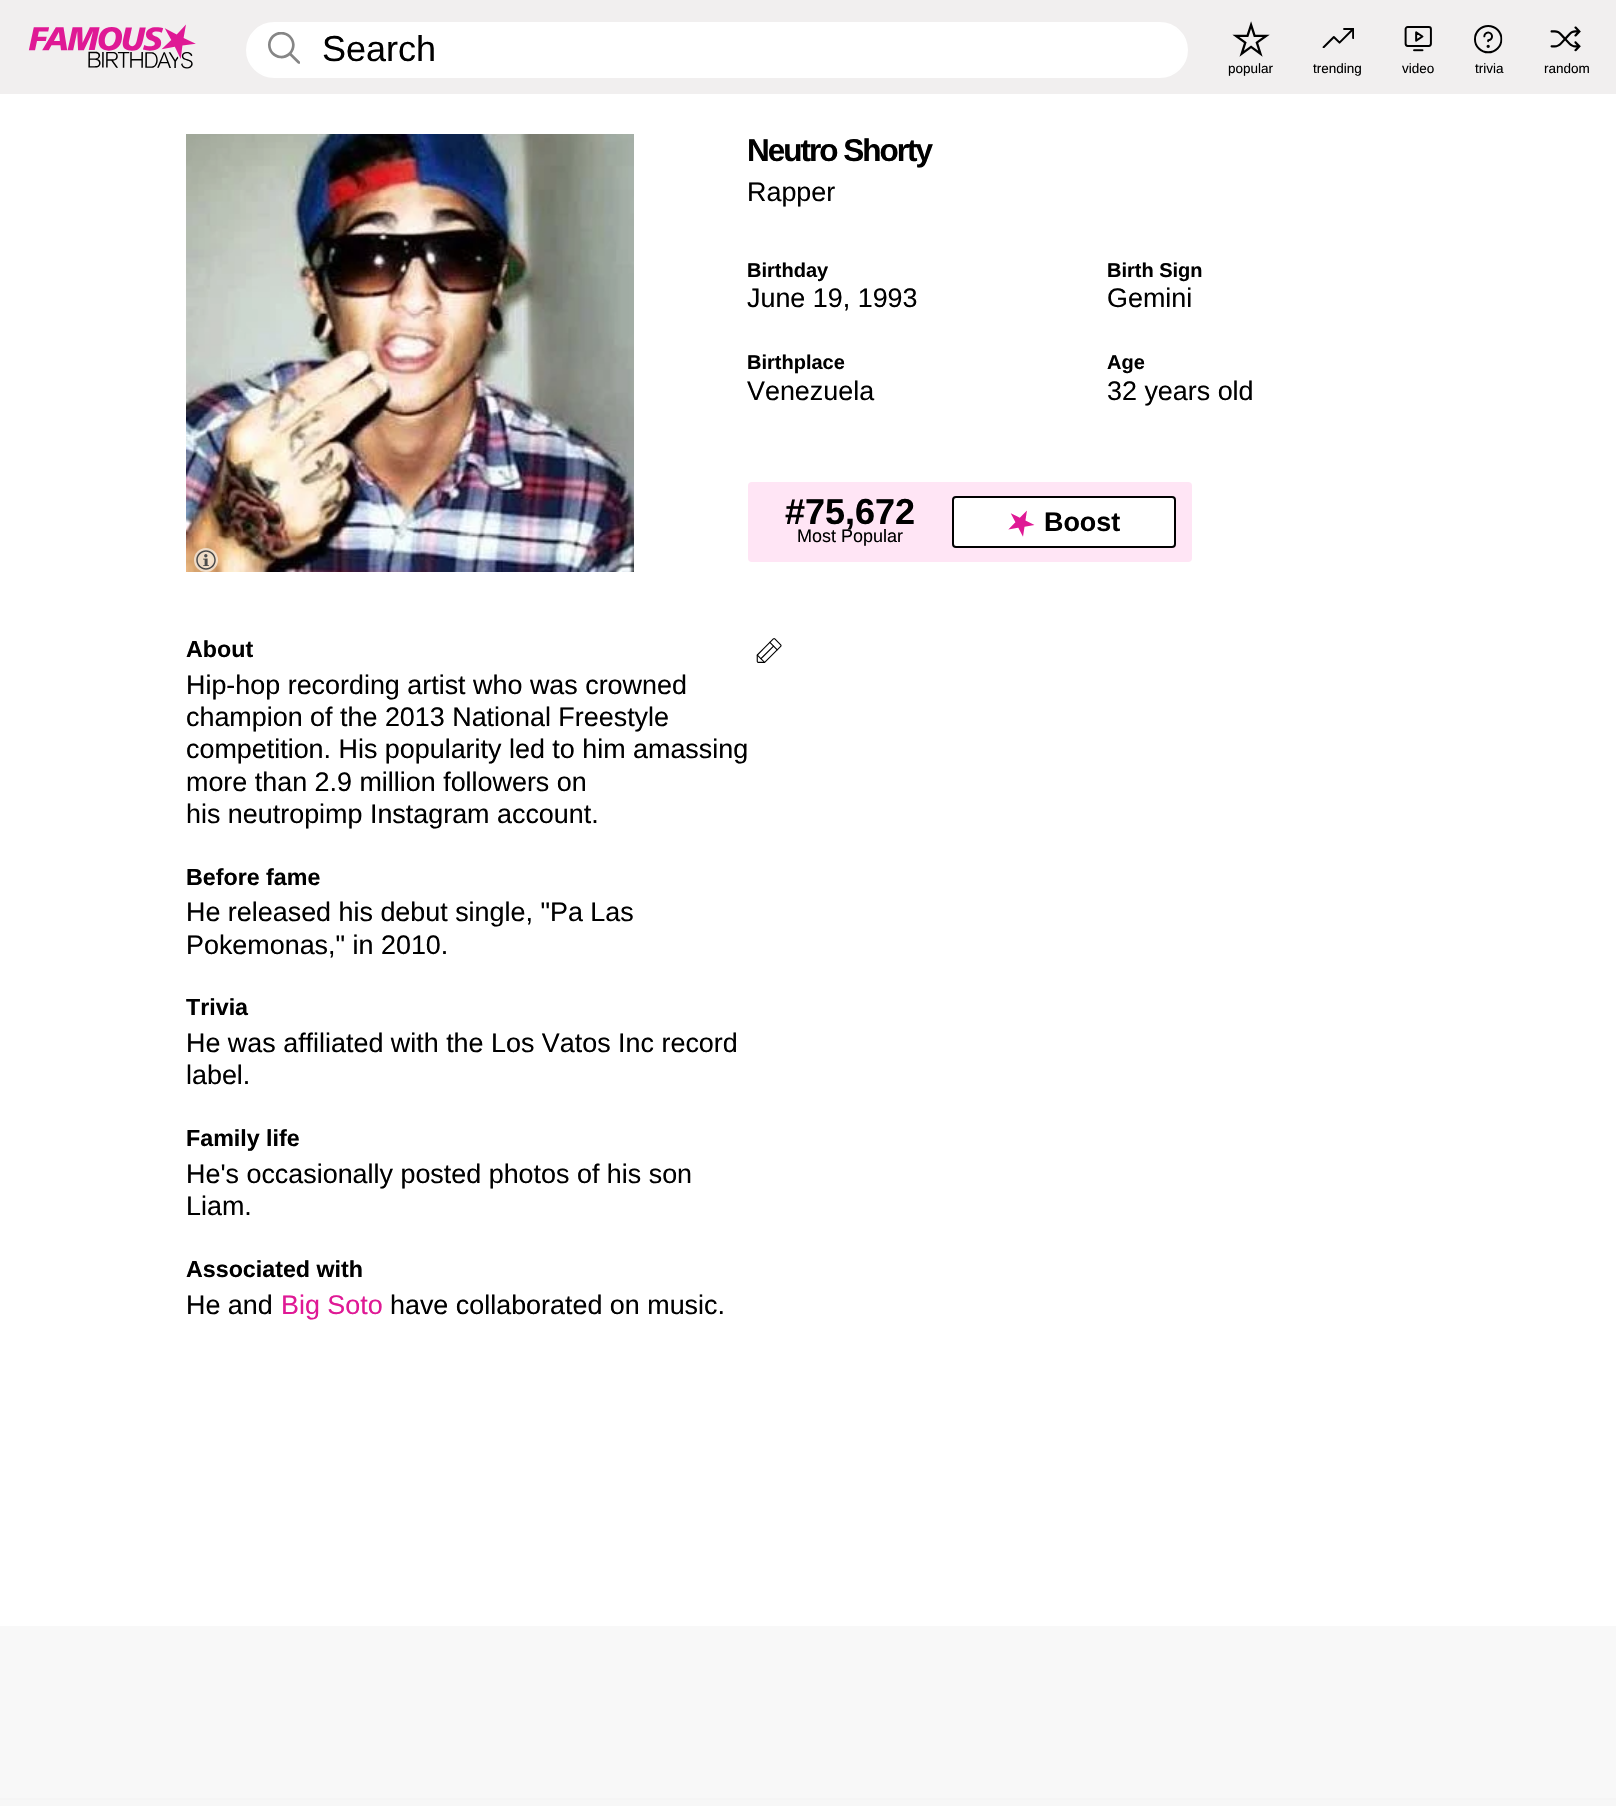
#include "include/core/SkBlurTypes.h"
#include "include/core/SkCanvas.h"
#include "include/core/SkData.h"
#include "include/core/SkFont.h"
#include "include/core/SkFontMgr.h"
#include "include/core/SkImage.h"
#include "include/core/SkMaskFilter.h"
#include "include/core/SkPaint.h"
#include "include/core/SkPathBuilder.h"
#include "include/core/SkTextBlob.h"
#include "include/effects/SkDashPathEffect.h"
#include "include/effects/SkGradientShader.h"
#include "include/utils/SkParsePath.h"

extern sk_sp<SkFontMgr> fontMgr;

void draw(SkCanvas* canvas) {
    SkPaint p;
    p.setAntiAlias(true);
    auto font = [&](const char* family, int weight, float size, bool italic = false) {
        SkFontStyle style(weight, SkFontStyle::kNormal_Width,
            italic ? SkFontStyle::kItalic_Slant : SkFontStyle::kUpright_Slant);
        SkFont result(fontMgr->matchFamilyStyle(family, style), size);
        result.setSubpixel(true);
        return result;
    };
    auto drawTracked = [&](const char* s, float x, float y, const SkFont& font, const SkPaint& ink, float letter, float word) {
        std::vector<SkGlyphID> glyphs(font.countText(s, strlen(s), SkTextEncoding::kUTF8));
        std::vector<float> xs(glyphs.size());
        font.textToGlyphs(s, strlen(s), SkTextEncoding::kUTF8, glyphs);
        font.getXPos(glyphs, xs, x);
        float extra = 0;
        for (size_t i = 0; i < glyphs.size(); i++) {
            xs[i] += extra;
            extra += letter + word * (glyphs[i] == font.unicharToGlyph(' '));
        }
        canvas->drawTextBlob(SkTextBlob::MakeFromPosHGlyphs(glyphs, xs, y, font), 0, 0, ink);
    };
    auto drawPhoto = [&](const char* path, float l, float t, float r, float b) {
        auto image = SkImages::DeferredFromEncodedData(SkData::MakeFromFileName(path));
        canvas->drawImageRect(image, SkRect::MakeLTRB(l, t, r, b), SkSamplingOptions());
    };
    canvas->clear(0xFFFFFFFF);
    p.setColor(0xFFF8F8F8);
    canvas->drawRect(SkRect::MakeLTRB(0, 1626, 1616, 1798), p);
    p.setColor(0xFFF1EFEF);
    canvas->drawRect(SkRect::MakeLTRB(0, 0, 1616, 94), p);
    drawPhoto("media/1.png", 28, 24, 196, 69);
    p.setColor(0xFFFFFFFF);
    canvas->drawRoundRect(SkRect::MakeLTRB(247, 23, 1187, 77), 27, 27, p);
    p.setStyle(SkPaint::kStroke_Style);
    p.setStrokeWidth(2);
    canvas->drawRoundRect(SkRect::MakeLTRB(247, 23, 1187, 77), 27, 27, p);
    drawPhoto("media/2.png", 268, 32, 300, 64);
    auto font1 = font("Liberation Sans", 400, 36);
    p.setStyle(SkPaint::kFill_Style);
    p.setColor(0xFF000000);
    canvas->drawString("Search", 322, 61, font1, p);
    drawPhoto("media/3.png", 1232, 21, 1270, 57);
    auto font2 = font("Liberation Sans", 400, 13.5f);
    canvas->drawString("popular", 1228, 73, font2, p);
    drawPhoto("media/4.png", 1322, 28, 1354, 48);
    canvas->drawString("trending", 1313, 73, font2, p);
    drawPhoto("media/5.png", 1404, 26, 1432, 52);
    canvas->drawString("video", 1402, 73, font2, p);
    drawPhoto("media/6.png", 1474, 25, 1503, 54);
    canvas->drawString("trivia", 1475, 73, font2, p);
    drawPhoto("media/7.png", 1550, 26, 1581, 52);
    canvas->drawString("random", 1544, 73, font2, p);
    drawPhoto("media/8.png", 186, 134, 634, 572);
    p.setColor(0x99FFFFFF);
    canvas->drawCircle(206, 560, 12, p);
    drawPhoto("media/9.png", 196, 550, 216, 570);
    auto font3 = font("Liberation Sans", 700, 31.5f);
    p.setColor(0xFF000000);
    drawTracked("Neutro Shorty", 747, 161, font3, p, -2, 0);
    auto font4 = font("Liberation Sans", 400, 26.9f);
    canvas->drawString("Rapper", 747, 201, font4, p);
    auto font5 = font("Liberation Sans", 700, 20);
    canvas->drawString("Birthday", 747, 277, font5, p);
    canvas->drawString("June 19, 1993", 747, 307, font4, p);
    canvas->drawString("Birth Sign", 1107, 277, font5, p);
    canvas->drawString("Gemini", 1107, 307, font4, p);
    canvas->drawString("Birthplace", 747, 369, font5, p);
    canvas->drawString("Venezuela", 747, 400, font4, p);
    canvas->drawString("Age", 1107, 369, font5, p);
    canvas->drawString("32 years old", 1107, 400, font4, p);
    p.setColor(0xFFFFE5F5);
    canvas->drawRoundRect(SkRect::MakeLTRB(748, 482, 1192, 562), 4, 4, p);
    auto font6 = font("Liberation Sans", 700, 36);
    p.setColor(0xFF000000);
    canvas->drawString("#75,672", 785, 524, font6, p);
    auto font7 = font("Liberation Sans", 400, 18);
    canvas->drawString("Most Popular", 797, 542, font7, p);
    p.setColor(0xFFFFFFFF);
    canvas->drawRoundRect(SkRect::MakeLTRB(953, 497, 1175, 547), 3, 3, p);
    p.setStyle(SkPaint::kStroke_Style);
    p.setColor(0xFF000000);
    canvas->drawRoundRect(SkRect::MakeLTRB(953, 497, 1175, 547), 3, 3, p);
    drawPhoto("media/10.png", 1008, 510, 1035, 537);
    auto font8 = font("Liberation Sans", 700, 26.9f);
    p.setStyle(SkPaint::kFill_Style);
    canvas->drawString("Boost", 1044, 531, font8, p);
    auto font9 = font("Liberation Sans", 700, 23.25f);
    canvas->drawString("About", 186, 657, font9, p);
    drawPhoto("media/11.png", 756, 638, 782, 663);
    {
        const struct { const char* s; float x, y; } items[] = {
            {"Hip-hop recording artist who was crowned", 186, 694},
            {"champion of the 2013 National Freestyle", 186, 726},
            {"competition. His popularity led to him amassing", 186, 758},
            {"more than 2.9 million followers on", 186, 791},
            {"his neutropimp Instagram account.", 186, 823},
        };
        for (auto [s, x, y] : items) {
            canvas->drawString(s, x, y, font4, p);
        }
    }
    canvas->drawString("Before fame", 186, 885, font9, p);
    canvas->drawString("He released his debut single, \"Pa Las", 186, 921, font4, p);
    canvas->drawString("Pokemonas,\" in 2010.", 186, 954, font4, p);
    canvas->drawString("Trivia", 186, 1015, font9, p);
    canvas->drawString("He was affiliated with the Los Vatos Inc record", 186, 1052, font4, p);
    canvas->drawString("label.", 186, 1084, font4, p);
    canvas->drawString("Family life", 186, 1146, font9, p);
    canvas->drawString("He's occasionally posted photos of his son", 186, 1183, font4, p);
    canvas->drawString("Liam.", 186, 1215, font4, p);
    canvas->drawString("Associated with", 186, 1277, font9, p);
    canvas->drawString("He and", 186, 1314, font4, p);
    p.setColor(0xFFDF1995);
    canvas->drawString("Big Soto", 281, 1314, font4, p);
    p.setColor(0xFF000000);
    canvas->drawString("have collaborated on music.", 390, 1314, font4, p);
    p.setColor(0xFFF7F7F7);
    canvas->drawRect(SkRect::MakeLTRB(0, 1800, 1616, 1806), p);
    p.setColor(0xFFF5F5F5);
    canvas->drawRect(SkRect::MakeLTRB(0, 1798, 1616, 1800), p);
}
